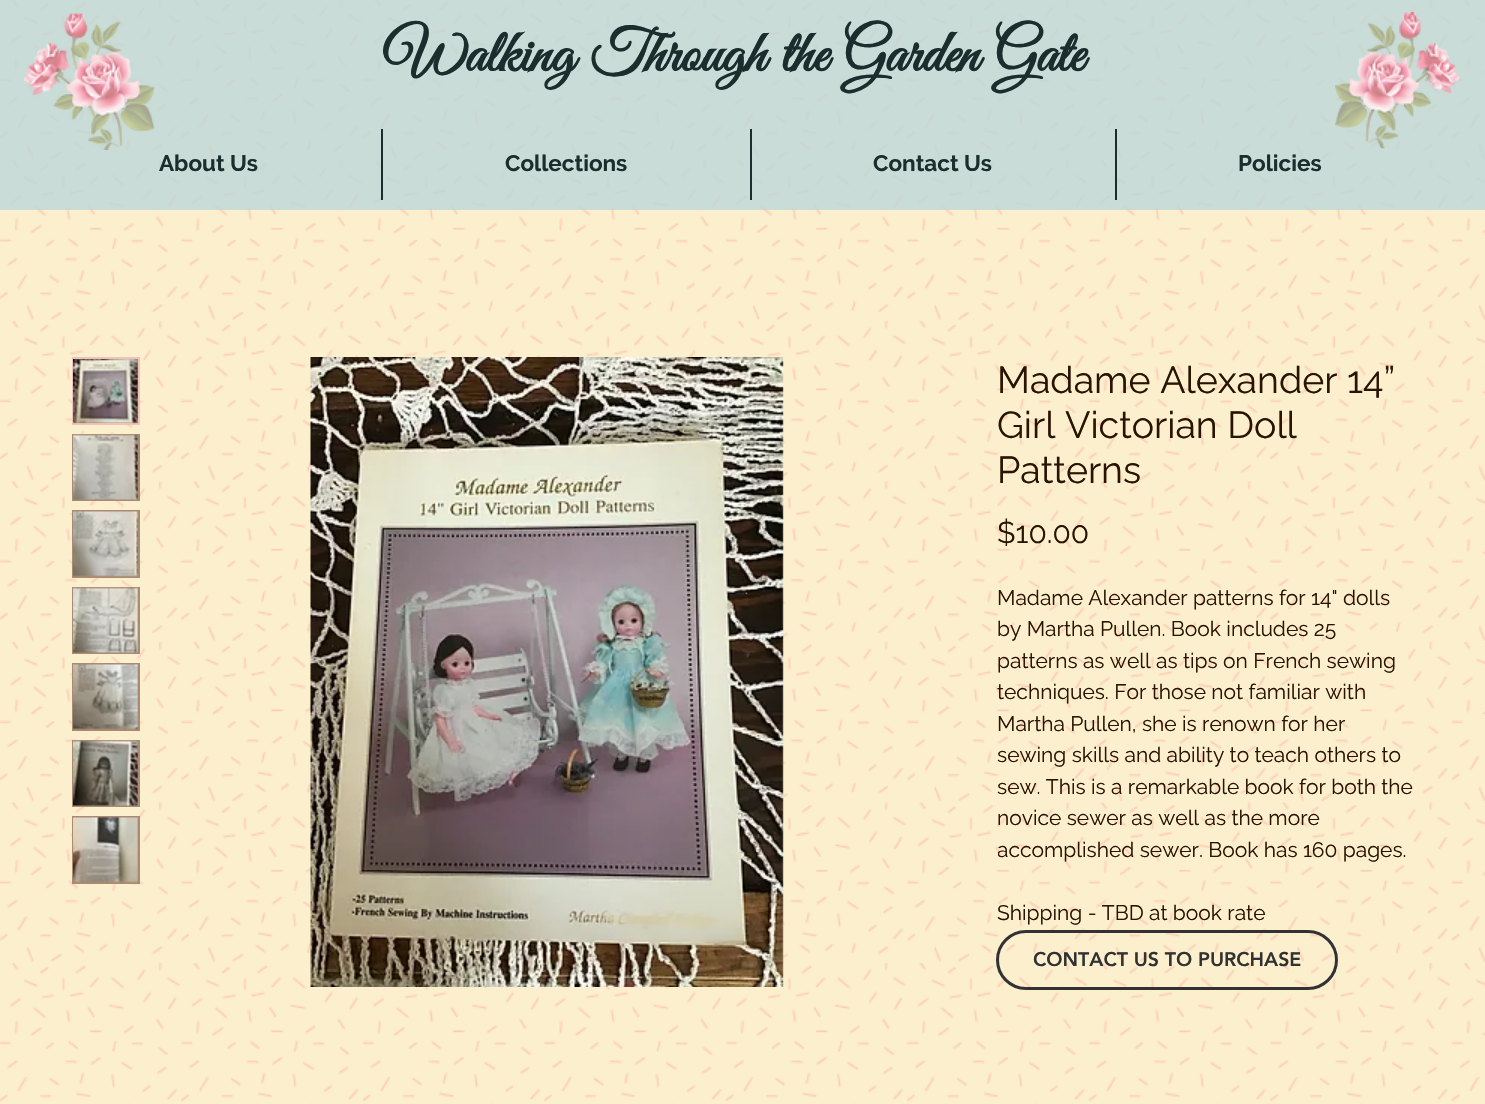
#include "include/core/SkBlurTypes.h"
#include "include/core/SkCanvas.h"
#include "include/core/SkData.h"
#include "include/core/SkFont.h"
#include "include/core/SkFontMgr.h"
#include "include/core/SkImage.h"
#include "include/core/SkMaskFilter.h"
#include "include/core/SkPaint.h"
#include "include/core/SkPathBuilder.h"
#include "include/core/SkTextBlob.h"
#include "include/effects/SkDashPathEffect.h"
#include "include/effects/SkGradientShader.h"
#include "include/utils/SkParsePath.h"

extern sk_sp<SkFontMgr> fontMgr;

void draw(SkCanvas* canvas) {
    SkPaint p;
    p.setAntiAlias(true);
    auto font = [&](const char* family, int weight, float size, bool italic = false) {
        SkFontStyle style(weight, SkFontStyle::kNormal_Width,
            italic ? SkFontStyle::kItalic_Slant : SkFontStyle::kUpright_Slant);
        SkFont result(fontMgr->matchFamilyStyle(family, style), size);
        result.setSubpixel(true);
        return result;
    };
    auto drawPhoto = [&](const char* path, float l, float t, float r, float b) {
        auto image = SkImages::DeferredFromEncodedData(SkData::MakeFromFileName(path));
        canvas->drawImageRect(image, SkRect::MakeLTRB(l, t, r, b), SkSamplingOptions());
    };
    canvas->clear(0xFFFCEFCE);
    drawPhoto("media/1.png", 0, 0, 1485, 1104);
    p.setColor(0xC7BBD6D8);
    canvas->drawRect(SkRect::MakeLTRB(0, 0, 1485, 210), p);
    drawPhoto("media/2.png", 24, 13, 155, 150);
    auto font1 = font("Great Vibes", 700, 60);
    p.setColor(0xFF1C2D2E);
    canvas->drawString("Walking Through the Garden Gate", 384, 71, font1, p);
    drawPhoto("media/3.png", 1335, 12, 1460, 149);
    auto font2 = font("Raleway", 700, 22.5f);
    canvas->drawString("About Us", 159, 171, font2, p);
    canvas->drawRect(SkRect::MakeLTRB(381, 129, 383, 200), p);
    canvas->drawString("Collections", 505, 171, font2, p);
    canvas->drawRect(SkRect::MakeLTRB(750, 129, 752, 200), p);
    canvas->drawString("Contact Us", 873, 171, font2, p);
    canvas->drawRect(SkRect::MakeLTRB(1115, 129, 1117, 200), p);
    canvas->drawString("Policies", 1238, 171, font2, p);
    p.setColor(0xFFA98A72);
    canvas->drawRect(SkRect::MakeLTRB(73, 358, 139, 424), p);
    p.setStyle(SkPaint::kStroke_Style);
    p.setStrokeWidth(2);
    p.setColor(0xFFF2C0BD);
    canvas->drawRect(SkRect::MakeLTRB(73, 358, 139, 424), p);
    drawPhoto("media/4.png", 73, 359, 138, 424);
    p.setStyle(SkPaint::kFill_Style);
    p.setColor(0xFFA98A72);
    canvas->drawRect(SkRect::MakeLTRB(72, 434, 140, 501), p);
    drawPhoto("media/5.png", 73, 434, 138, 500);
    canvas->drawRect(SkRect::MakeLTRB(72, 510, 140, 578), p);
    drawPhoto("media/6.png", 73, 511, 138, 577);
    canvas->drawRect(SkRect::MakeLTRB(72, 587, 140, 654), p);
    drawPhoto("media/7.png", 73, 587, 138, 653);
    canvas->drawRect(SkRect::MakeLTRB(72, 663, 140, 731), p);
    drawPhoto("media/8.png", 73, 664, 138, 730);
    canvas->drawRect(SkRect::MakeLTRB(72, 740, 140, 807), p);
    drawPhoto("media/9.png", 73, 740, 138, 806);
    canvas->drawRect(SkRect::MakeLTRB(72, 816, 140, 884), p);
    drawPhoto("media/10.png", 73, 817, 138, 883);
    drawPhoto("media/11.png", 310, 357, 784, 987);
    auto font3 = font("Raleway", 400, 37.5f);
    p.setColor(0xFF291301);
    {
        const struct { const char* s; float x, y; } items[] = {
            {"Madame Alexander 14”", 997, 393},
            {"Girl Victorian Doll", 997, 438},
            {"Patterns", 997, 483},
        };
        for (auto [s, x, y] : items) {
            canvas->drawString(s, x, y, font3, p);
        }
    }
    auto font4 = font("Raleway", 400, 30);
    canvas->drawString("$10.00", 997, 543, font4, p);
    auto font5 = font("Raleway", 400, 21);
    {
        const struct { const char* s; float x, y; } items[] = {
            {"Madame Alexander patterns for 14\" dolls", 997, 605},
            {"by Martha Pullen. Book includes 25", 997, 636},
            {"patterns as well as tips on French sewing", 997, 668},
            {"techniques. For those not familiar with", 997, 699},
            {"Martha Pullen, she is renown for her", 997, 731},
            {"sewing skills and ability to teach others to", 997, 762},
            {"sew. This is a remarkable book for both the", 997, 794},
            {"novice sewer as well as the more", 997, 825},
        };
        for (auto [s, x, y] : items) {
            canvas->drawString(s, x, y, font5, p);
        }
    }
    canvas->save();
    canvas->clipRect(SkRect::MakeLTRB(998, 582, 1418, 929));
    canvas->drawString("accomplished sewer. Book has 160 pages.", 997, 857, font5, p);
    canvas->restore();
    canvas->drawString("Shipping - TBD at book rate", 997, 920, font5, p);
    p.setStyle(SkPaint::kStroke_Style);
    p.setStrokeWidth(3);
    p.setColor(0xFF323232);
    canvas->drawRoundRect(SkRect::MakeLTRB(997.5f, 931.5f, 1336.5f, 988.5f), 28.5f, 28.5f, p);
    auto font6 = font("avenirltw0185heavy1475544", 900, 19.5f);
    p.setStyle(SkPaint::kFill_Style);
    canvas->drawString("CONTACT US TO PURCHASE", 1033, 966, font6, p);
}
